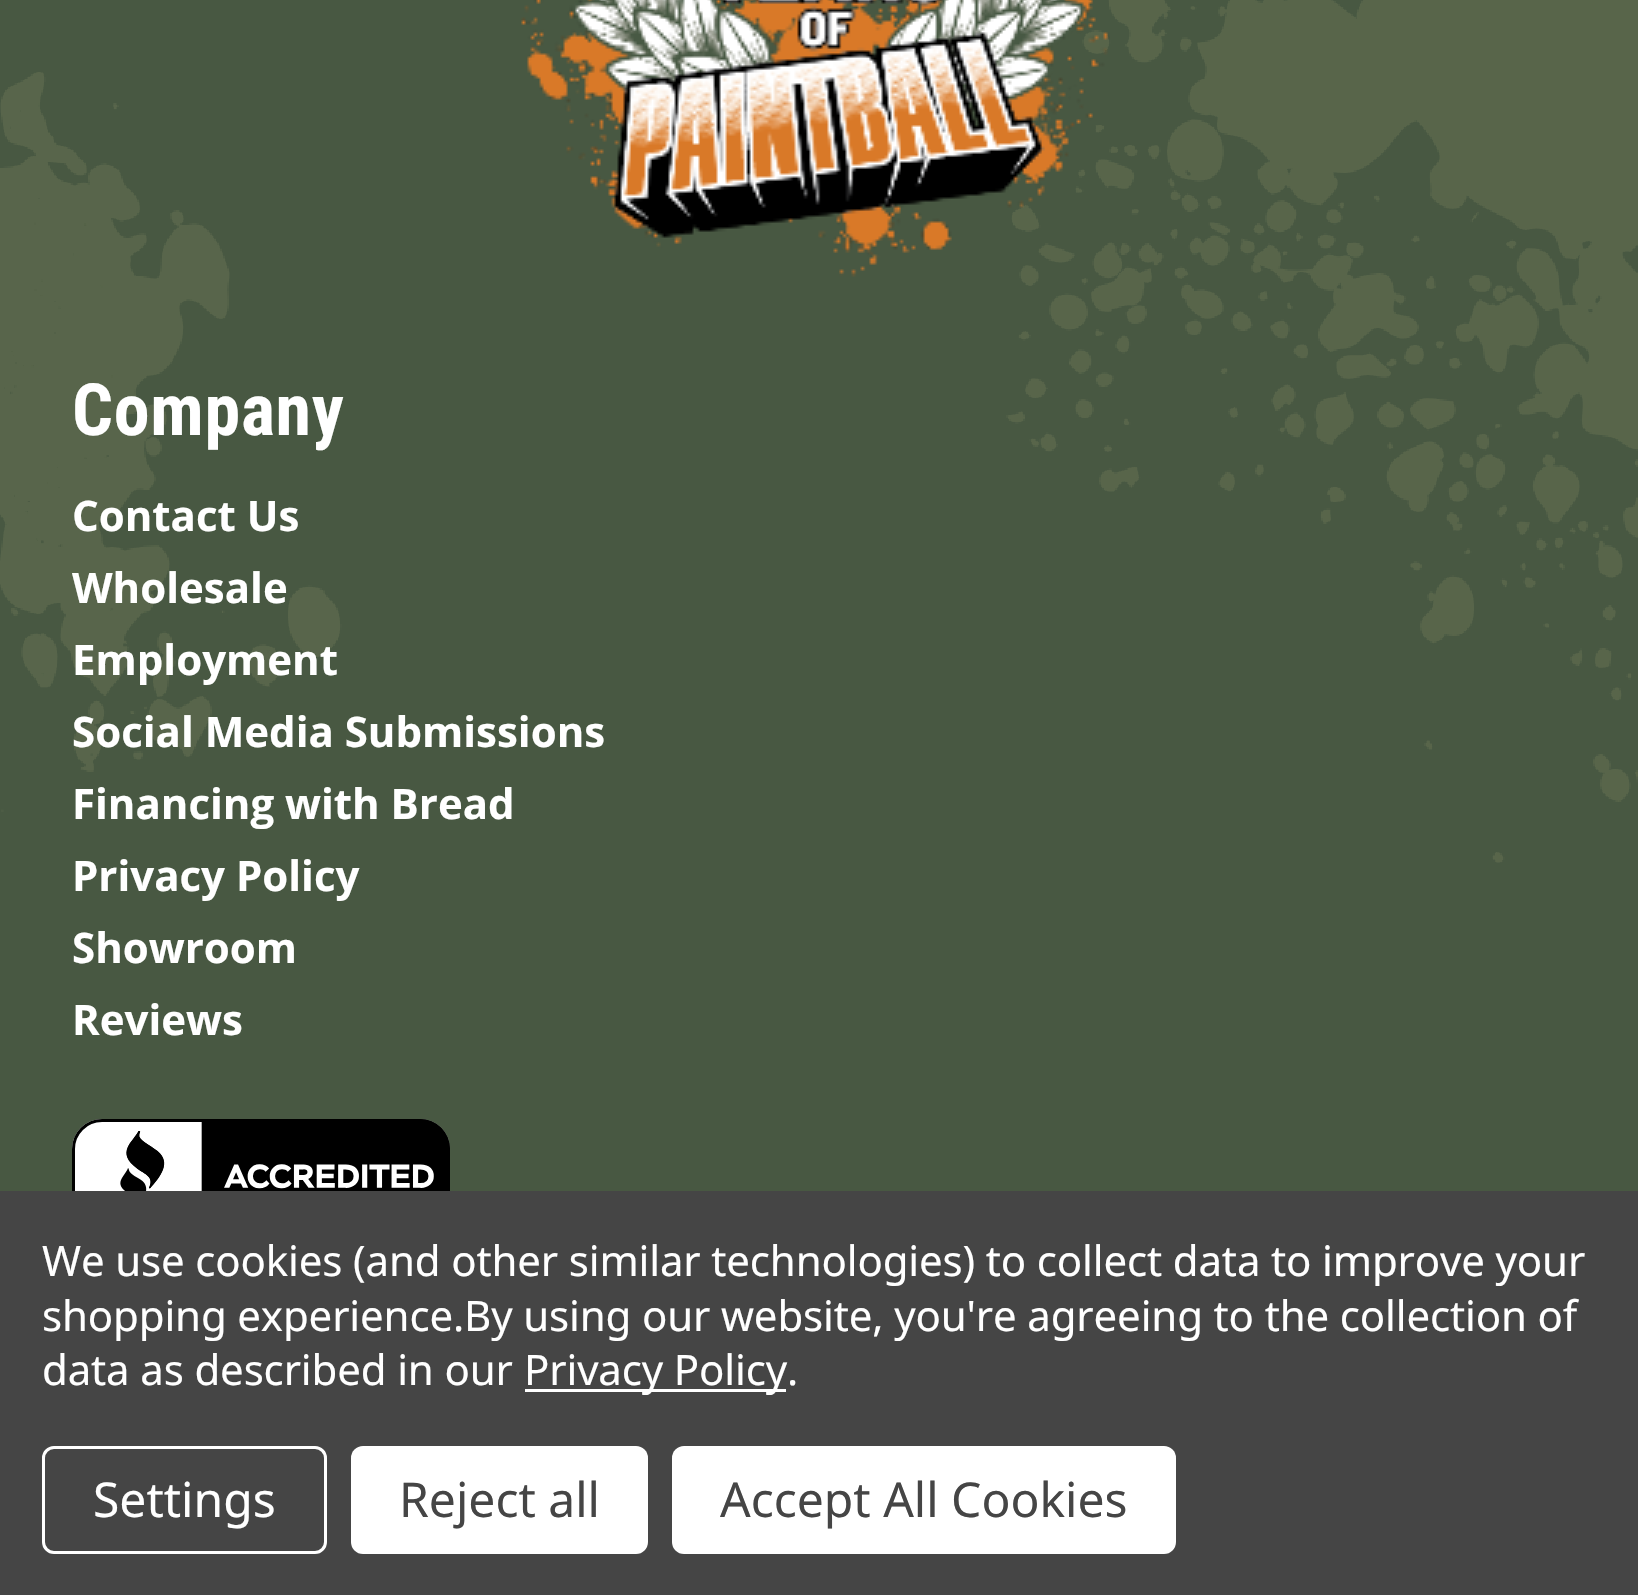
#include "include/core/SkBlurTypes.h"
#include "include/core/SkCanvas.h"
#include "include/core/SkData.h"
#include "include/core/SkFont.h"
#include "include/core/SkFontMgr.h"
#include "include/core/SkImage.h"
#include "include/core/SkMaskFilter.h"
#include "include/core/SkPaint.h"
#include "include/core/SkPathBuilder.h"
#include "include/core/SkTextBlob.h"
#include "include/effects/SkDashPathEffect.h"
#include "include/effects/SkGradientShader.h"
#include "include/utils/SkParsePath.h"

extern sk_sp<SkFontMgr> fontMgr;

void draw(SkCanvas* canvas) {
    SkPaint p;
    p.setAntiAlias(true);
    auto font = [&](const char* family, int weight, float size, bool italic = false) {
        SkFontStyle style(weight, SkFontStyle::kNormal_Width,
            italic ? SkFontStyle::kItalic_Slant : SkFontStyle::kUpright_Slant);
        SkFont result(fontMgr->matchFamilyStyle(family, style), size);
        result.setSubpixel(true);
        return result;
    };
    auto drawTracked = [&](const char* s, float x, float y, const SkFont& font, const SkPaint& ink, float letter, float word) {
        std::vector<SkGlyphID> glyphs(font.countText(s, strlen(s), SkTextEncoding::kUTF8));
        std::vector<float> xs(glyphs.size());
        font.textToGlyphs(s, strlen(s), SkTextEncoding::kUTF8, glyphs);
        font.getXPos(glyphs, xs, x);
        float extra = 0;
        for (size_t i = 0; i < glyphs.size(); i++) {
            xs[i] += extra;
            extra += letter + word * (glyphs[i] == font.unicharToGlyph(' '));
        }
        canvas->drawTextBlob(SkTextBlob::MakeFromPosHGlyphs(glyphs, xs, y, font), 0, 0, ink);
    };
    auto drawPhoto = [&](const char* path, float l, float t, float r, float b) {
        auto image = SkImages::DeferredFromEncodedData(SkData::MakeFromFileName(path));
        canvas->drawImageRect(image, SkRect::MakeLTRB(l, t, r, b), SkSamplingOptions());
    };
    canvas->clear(0xFF485842);
    drawPhoto("media/1.png", 0, 0, 1638, 863);
    drawPhoto("media/2.png", 521, 0, 1110, 277);
    auto font1 = font("Roboto Condensed", 700, 72);
    p.setColor(0xFFFFFFFF);
    drawTracked("Company", 72, 435, font1, p, 0.75f, 0);
    auto font2 = font("Open Sans", 700, 42);
    {
        const struct { const char* s; float x, y; } items[] = {
            {"Contact Us", 72, 531},
            {"Wholesale", 72, 603},
            {"Employment", 72, 675},
            {"Social Media Submissions", 72, 747},
            {"Financing with Bread", 72, 819},
            {"Privacy Policy", 72, 891},
            {"Showroom", 72, 963},
            {"Reviews", 72, 1035},
        };
        for (auto [s, x, y] : items) {
            canvas->drawString(s, x, y, font2, p);
        }
    }
    drawPhoto("media/3.png", 72, 1119, 450, 1191);
    p.setColor(0xFF454545);
    canvas->drawRect(SkRect::MakeLTRB(0, 1191, 1638, 1595), p);
    auto font3 = font("Noto Sans", 400, 42);
    p.setColor(0xFFFFFFFF);
    {
        const struct { const char* s; float x, y; } items[] = {
            {"We use cookies (and other similar technologies) to collect data to improve your", 42, 1276},
            {"shopping experience.By using our website, you're agreeing to the collection of", 42, 1331},
            {"data as described in our", 42, 1385},
        };
        for (auto [s, x, y] : items) {
            drawTracked(s, x, y, font3, p, -0.15f, 0);
        }
    }
    canvas->drawRect(SkRect::MakeLTRB(525, 1389, 786, 1392), p);
    drawTracked("Privacy Policy.", 524, 1385, font3, p, -0.15f, 0);
    p.setStyle(SkPaint::kStroke_Style);
    p.setStrokeWidth(3);
    canvas->drawRoundRect(SkRect::MakeLTRB(43.5f, 1447.5f, 325.5f, 1552.5f), 10.5f, 10.5f, p);
    auto font4 = font("Noto Sans", 400, 48);
    p.setStyle(SkPaint::kFill_Style);
    canvas->drawString("Settings", 93, 1517, font4, p);
    canvas->drawRoundRect(SkRect::MakeLTRB(351, 1446, 648, 1554), 12, 12, p);
    p.setColor(0xFF454545);
    canvas->drawString("Reject all", 399, 1517, font4, p);
    p.setColor(0xFFFFFFFF);
    canvas->drawRoundRect(SkRect::MakeLTRB(672, 1446, 1176, 1554), 12, 12, p);
    p.setColor(0xFF454545);
    canvas->drawString("Accept All Cookies", 720, 1517, font4, p);
}
